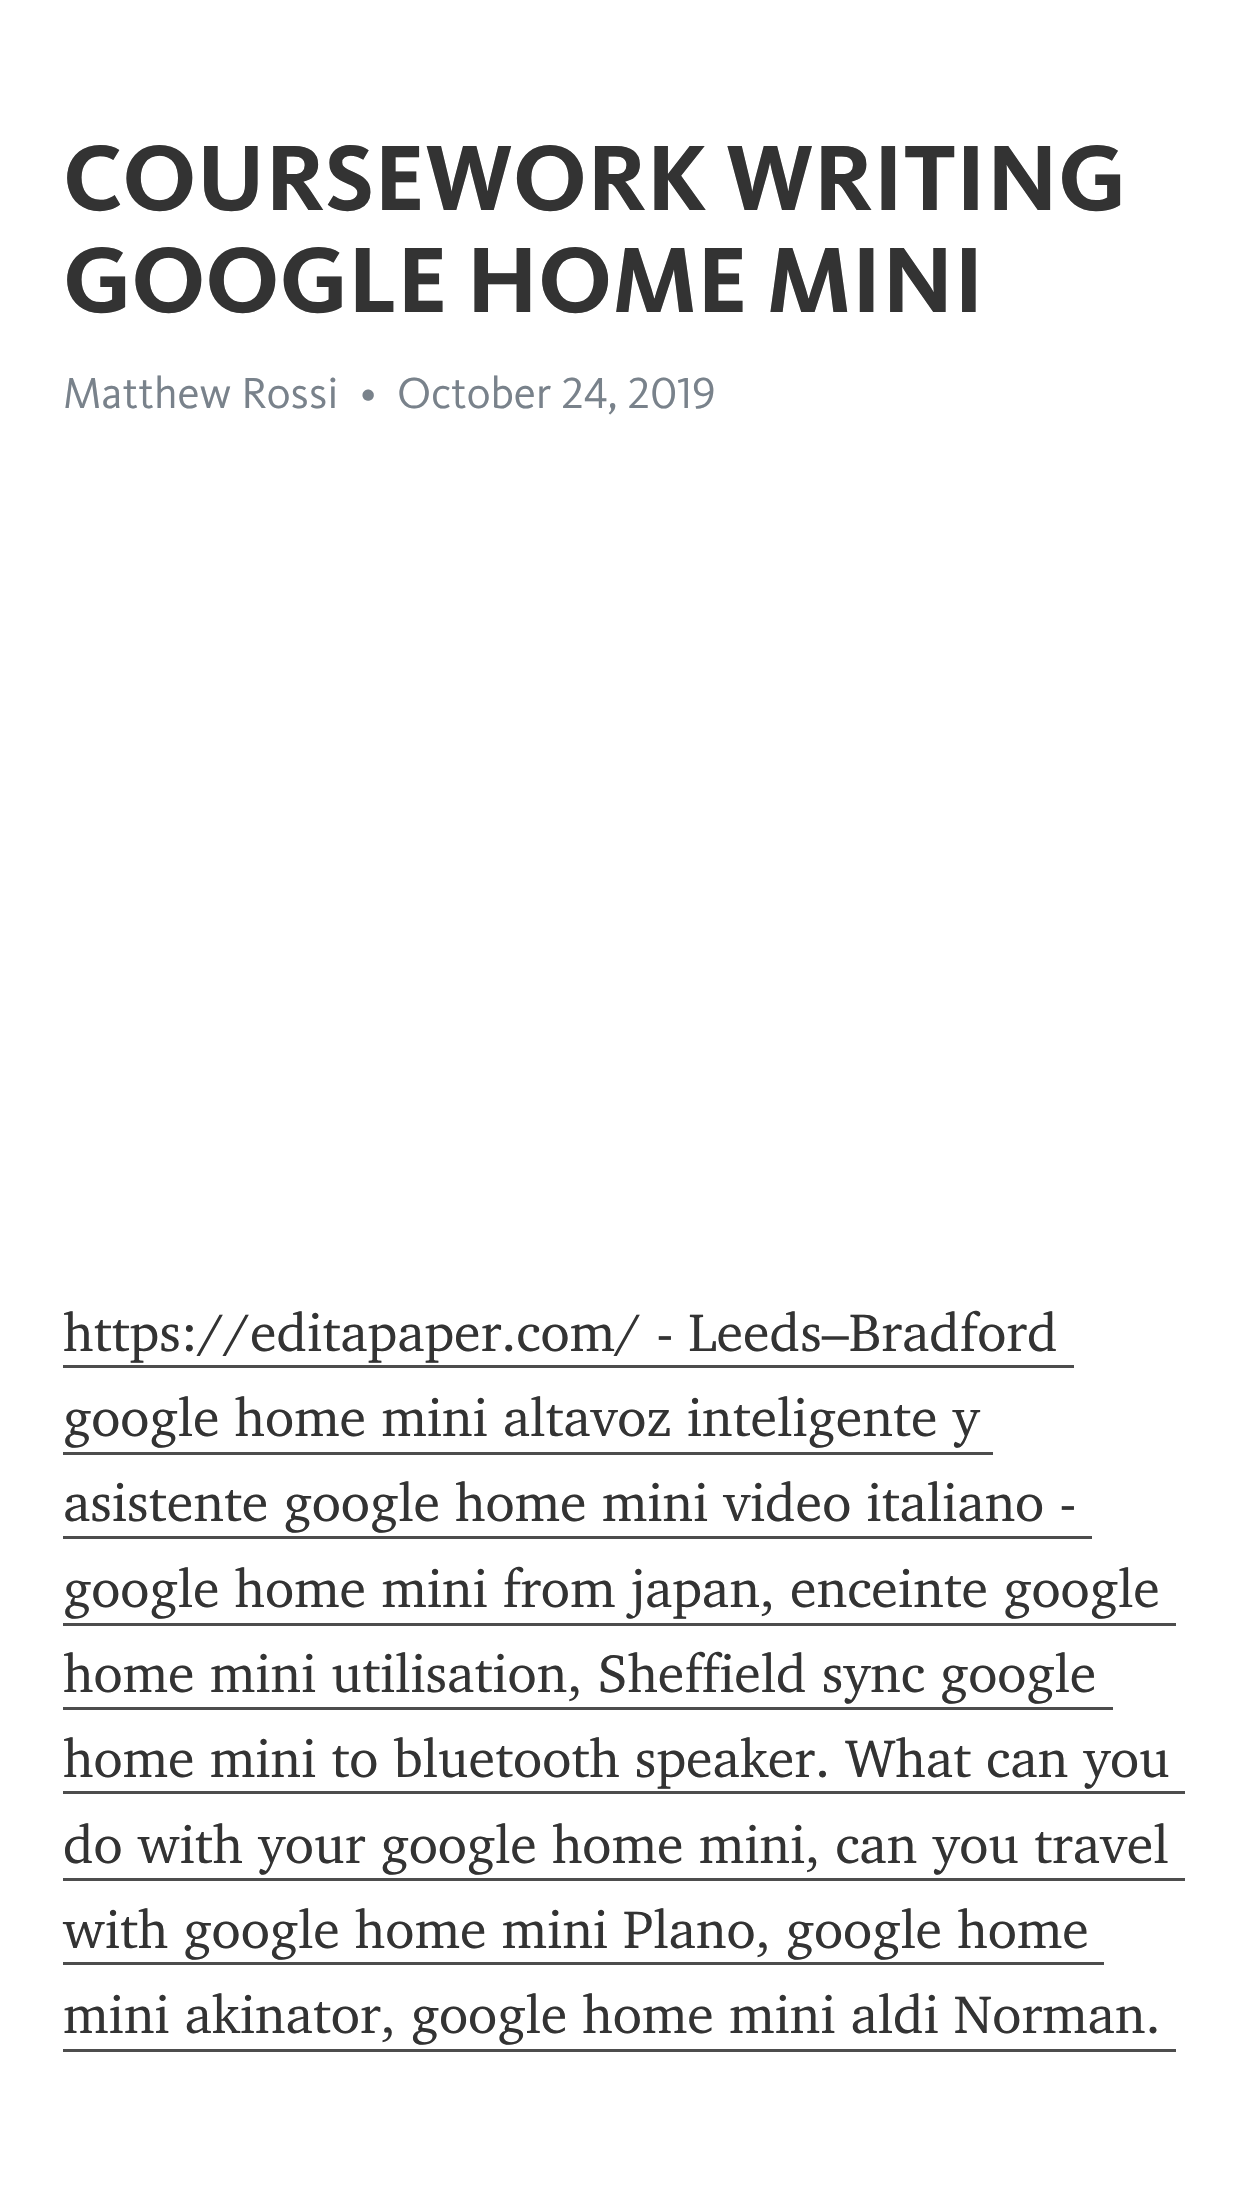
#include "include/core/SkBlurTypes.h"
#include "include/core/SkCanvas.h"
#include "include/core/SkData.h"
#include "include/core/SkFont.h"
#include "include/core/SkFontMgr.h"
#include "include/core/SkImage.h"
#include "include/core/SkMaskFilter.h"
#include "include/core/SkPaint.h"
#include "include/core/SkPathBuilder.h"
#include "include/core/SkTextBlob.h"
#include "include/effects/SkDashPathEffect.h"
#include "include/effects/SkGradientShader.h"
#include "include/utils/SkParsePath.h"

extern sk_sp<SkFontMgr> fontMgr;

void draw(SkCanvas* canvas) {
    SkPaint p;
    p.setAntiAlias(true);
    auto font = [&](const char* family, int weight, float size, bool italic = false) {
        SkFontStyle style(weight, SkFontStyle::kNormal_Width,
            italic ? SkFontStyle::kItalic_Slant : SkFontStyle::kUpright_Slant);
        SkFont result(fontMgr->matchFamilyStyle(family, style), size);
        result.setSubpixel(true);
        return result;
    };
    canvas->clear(0xFFFFFFFF);
    auto font1 = font("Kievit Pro", 700, 96);
    p.setColor(0xFF333333);
    canvas->drawString("COURSEWORK WRITING", 63, 210, font1, p);
    canvas->drawString("GOOGLE HOME MINI", 63, 312, font1, p);
    auto font2 = font("Kievit Pro", 400, 45);
    p.setColor(0xFF79828B);
    {
        const struct { const char* s; float x, y; } items[] = {
            {"Matthew Rossi", 63, 408},
            {"•", 360, 408},
            {"October 24, 2019", 397, 408},
        };
        for (auto [s, x, y] : items) {
            canvas->drawString(s, x, y, font2, p);
        }
    }
    auto font3 = font("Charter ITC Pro", 400, 54);
    p.setColor(0xFF333333);
    canvas->drawString("https://editapaper.com/ - Leeds–Bradford", 63, 1351, font3, p);
    p.setColor(0xFF4D4D4D);
    canvas->drawRect(SkRect::MakeLTRB(63, 1365, 1074, 1368), p);
    p.setColor(0xFF333333);
    canvas->drawString("google home mini altavoz inteligente y", 63, 1436, font3, p);
    p.setColor(0xFF4D4D4D);
    canvas->drawRect(SkRect::MakeLTRB(63, 1452, 993, 1455), p);
    p.setColor(0xFF333333);
    canvas->drawString("asistente google home mini video italiano -", 63, 1521, font3, p);
    p.setColor(0xFF4D4D4D);
    canvas->drawRect(SkRect::MakeLTRB(63, 1536, 1092, 1539), p);
    p.setColor(0xFF333333);
    canvas->drawString("google home mini from japan, enceinte google", 63, 1607, font3, p);
    p.setColor(0xFF4D4D4D);
    canvas->drawRect(SkRect::MakeLTRB(63, 1623, 1176, 1626), p);
    p.setColor(0xFF333333);
    canvas->drawString("home mini utilisation, Sheffield sync google", 63, 1692, font3, p);
    p.setColor(0xFF4D4D4D);
    canvas->drawRect(SkRect::MakeLTRB(63, 1707, 1113, 1710), p);
    p.setColor(0xFF333333);
    canvas->drawString("home mini to bluetooth speaker. What can you", 63, 1777, font3, p);
    p.setColor(0xFF4D4D4D);
    canvas->drawRect(SkRect::MakeLTRB(63, 1791, 1185, 1794), p);
    p.setColor(0xFF333333);
    canvas->drawString("do with your google home mini, can you travel", 63, 1863, font3, p);
    p.setColor(0xFF4D4D4D);
    canvas->drawRect(SkRect::MakeLTRB(63, 1878, 1185, 1881), p);
    p.setColor(0xFF333333);
    canvas->drawString("with google home mini Plano, google home", 63, 1948, font3, p);
    p.setColor(0xFF4D4D4D);
    canvas->drawRect(SkRect::MakeLTRB(63, 1962, 1104, 1965), p);
    p.setColor(0xFF333333);
    canvas->drawString("mini akinator, google home mini aldi Norman.", 63, 2033, font3, p);
    p.setColor(0xFF4D4D4D);
    canvas->drawRect(SkRect::MakeLTRB(63, 2049, 1176, 2052), p);
}
